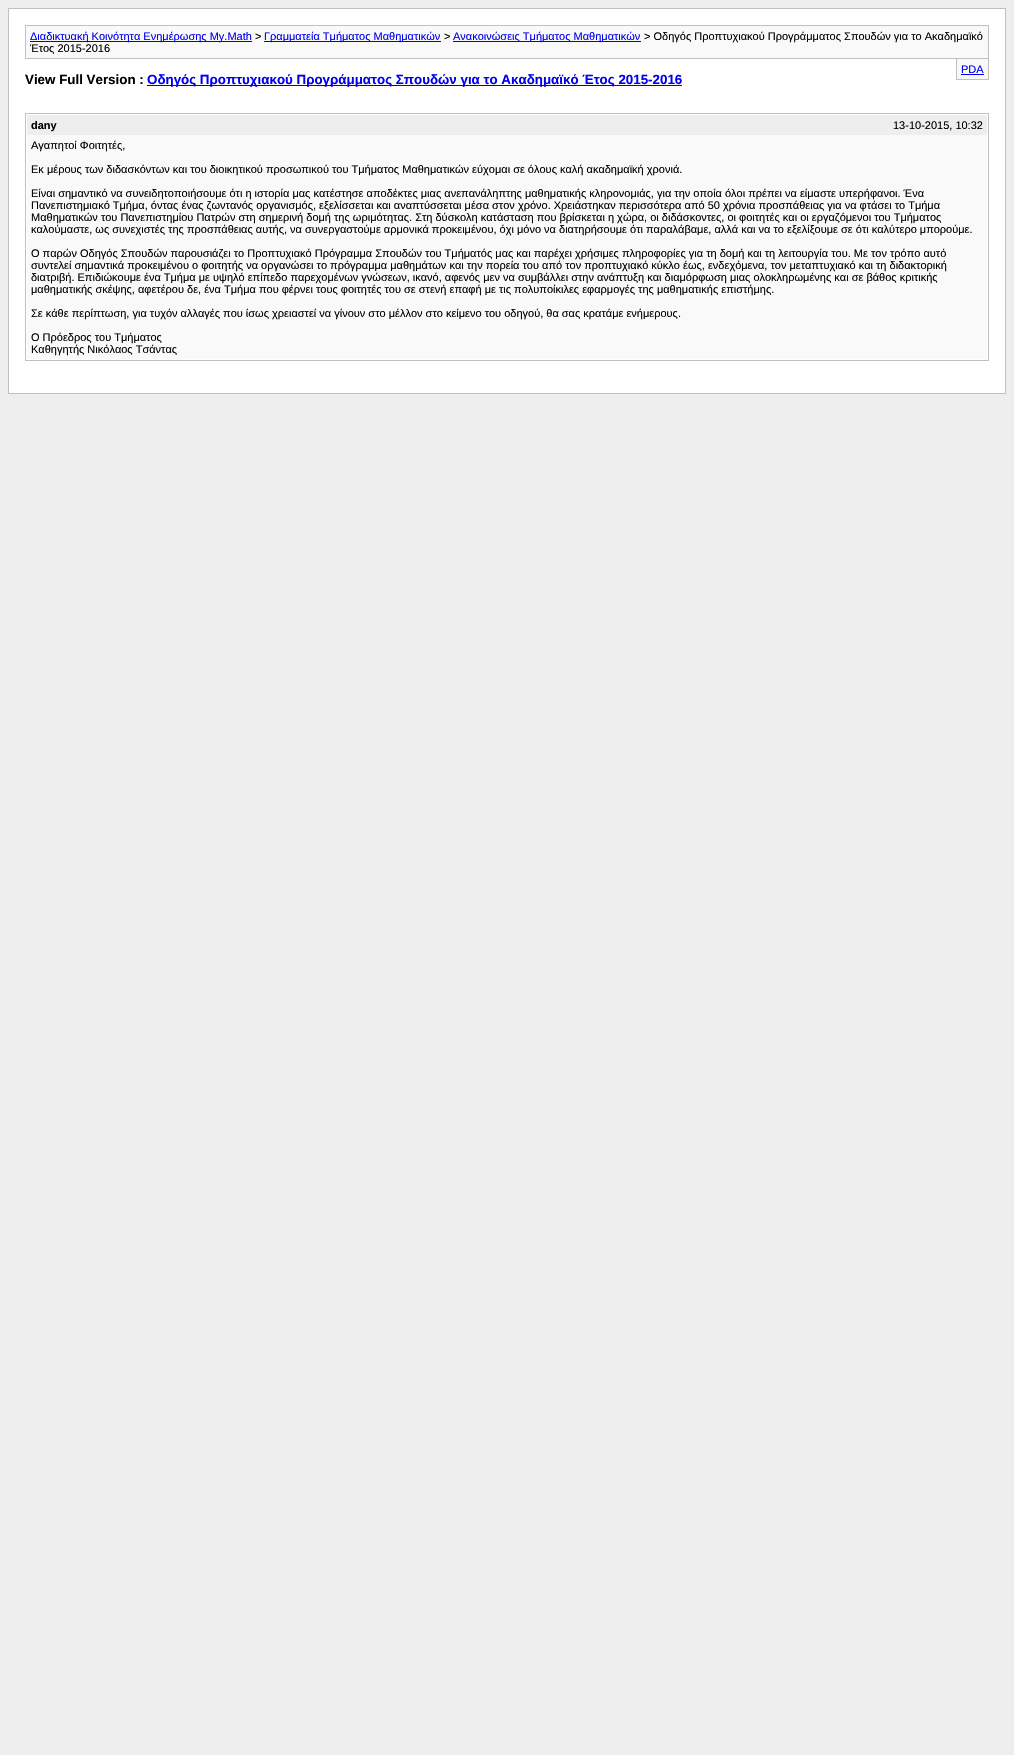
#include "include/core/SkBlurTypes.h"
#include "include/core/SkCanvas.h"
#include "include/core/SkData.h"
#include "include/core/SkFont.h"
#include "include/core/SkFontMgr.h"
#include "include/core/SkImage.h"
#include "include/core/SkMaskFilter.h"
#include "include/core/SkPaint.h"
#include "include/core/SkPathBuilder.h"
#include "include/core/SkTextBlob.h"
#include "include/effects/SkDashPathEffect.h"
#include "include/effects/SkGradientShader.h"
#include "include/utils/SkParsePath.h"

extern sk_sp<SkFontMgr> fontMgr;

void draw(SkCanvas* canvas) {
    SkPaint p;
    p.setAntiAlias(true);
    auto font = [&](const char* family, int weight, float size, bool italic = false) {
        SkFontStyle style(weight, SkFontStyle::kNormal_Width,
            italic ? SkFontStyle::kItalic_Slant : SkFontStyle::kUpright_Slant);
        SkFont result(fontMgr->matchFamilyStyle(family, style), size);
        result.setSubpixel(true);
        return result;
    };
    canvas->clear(0xFFEEEEEE);
    p.setColor(0xFFFFFFFF);
    canvas->drawRect(SkRect::MakeLTRB(8.5f, 8.5f, 1005.5f, 393.5f), p);
    p.setStyle(SkPaint::kStroke_Style);
    p.setStrokeWidth(1);
    p.setColor(0xFFC0C0C0);
    canvas->drawRect(SkRect::MakeLTRB(8.5f, 8.5f, 1005.5f, 393.5f), p);
    p.setStyle(SkPaint::kFill_Style);
    p.setColor(0xFFF9F9F9);
    canvas->drawRect(SkRect::MakeLTRB(25.5f, 25.5f, 988.5f, 58.5f), p);
    p.setStyle(SkPaint::kStroke_Style);
    p.setColor(0xFFC0C0C0);
    canvas->drawRect(SkRect::MakeLTRB(25.5f, 25.5f, 988.5f, 58.5f), p);
    p.setStyle(SkPaint::kFill_Style);
    p.setColor(0xFF0000EE);
    canvas->drawRect(SkRect::MakeLTRB(30, 41, 252, 42), p);
    auto font1 = font("Liberation Sans", 400, 11);
    canvas->drawString("Διαδικτυακή Κοινότητα Ενημέρωσης My.Math", 30, 40, font1, p);
    p.setColor(0xFF000000);
    canvas->drawString(">", 255, 40, font1, p);
    p.setColor(0xFF0000EE);
    canvas->drawRect(SkRect::MakeLTRB(264, 41, 441, 42), p);
    canvas->drawString("Γραμματεία Τμήματος Μαθηματικών", 264, 40, font1, p);
    p.setColor(0xFF000000);
    canvas->drawString(">", 444, 40, font1, p);
    p.setColor(0xFF0000EE);
    canvas->drawRect(SkRect::MakeLTRB(453, 41, 641, 42), p);
    canvas->drawString("Ανακοινώσεις Τμήματος Μαθηματικών", 453, 40, font1, p);
    p.setColor(0xFF000000);
    canvas->drawString("> Οδηγός Προπτυχιακού Προγράμματος Σπουδών για το Aκαδημαϊκό", 644, 40, font1, p);
    canvas->drawString("Έτος 2015-2016", 30, 52, font1, p);
    {
        const struct { float l, t, r, b; SkColor color; } items[] = {
            {957, 59, 988, 79, 0xFFF9F9F9},
            {988, 59, 989, 80, 0xFFC0C0C0},
            {956, 79, 989, 80, 0xFFC0C0C0},
            {956, 59, 957, 80, 0xFFC0C0C0},
        };
        for (auto [l, t, r, b, color] : items) {
            p.setColor(color);
            canvas->drawRect(SkRect::MakeLTRB(l, t, r, b), p);
        }
    }
    p.setColor(0xFF0000EE);
    canvas->drawString("PDA", 961, 73, font1, p);
    canvas->drawRect(SkRect::MakeLTRB(961, 74, 984, 75), p);
    auto font2 = font("Liberation Sans", 700, 13.35f);
    p.setColor(0xFF000000);
    canvas->drawString("View Full Version :", 25, 84, font2, p);
    p.setColor(0xFF0000EE);
    canvas->drawRect(SkRect::MakeLTRB(147, 85, 682, 86), p);
    canvas->drawString("Οδηγός Προπτυχιακού Προγράμματος Σπουδών για το Aκαδημαϊκό Έτος 2015-2016", 147, 84, font2, p);
    p.setStyle(SkPaint::kStroke_Style);
    p.setColor(0xFFC0C0C0);
    canvas->drawRect(SkRect::MakeLTRB(25.5f, 113.5f, 988.5f, 360.5f), p);
    p.setStyle(SkPaint::kFill_Style);
    p.setColor(0xFFEEEEEE);
    canvas->drawRect(SkRect::MakeLTRB(27, 115, 987, 135), p);
    auto font3 = font("Liberation Sans", 700, 11);
    p.setColor(0xFF000000);
    canvas->drawString("dany", 31, 129, font3, p);
    canvas->drawString("13-10-2015, 10:32", 893, 129, font1, p);
    p.setColor(0xFFF9F9F9);
    canvas->drawRect(SkRect::MakeLTRB(27, 135, 987, 359), p);
    p.setColor(0xFF000000);
    {
        const struct { const char* s; float x, y; } items[] = {
            {"Αγαπητοί Φοιτητές,", 31, 149},
            {"Εκ μέρους των διδασκόντων και του διοικητικού προσωπικού του Τμήματος Μαθηματικών εύχομαι σε όλους καλή ακαδημαϊκή χρονιά.", 31, 173},
            {"Είναι σημαντικό να συνειδητοποιήσουμε ότι η ιστορία μας κατέστησε αποδέκτες μιας ανεπανάληπτης μαθηματικής κληρονομιάς, για την οποία όλοι πρέπει να είμαστε υπερήφανοι. Ένα", 31, 197},
            {"Πανεπιστημιακό Τμήμα, όντας ένας ζωντανός οργανισμός, εξελίσσεται και αναπτύσσεται μέσα στον χρόνο. Χρειάστηκαν περισσότερα από 50 χρόνια προσπάθειας για να φτάσει το Τμήμα", 31, 209},
            {"Μαθηματικών του Πανεπιστημίου Πατρών στη σημερινή δομή της ωριμότητας. Στη δύσκολη κατάσταση που βρίσκεται η χώρα, οι διδάσκοντες, οι φοιτητές και οι εργαζόμενοι του Τμήματος", 31, 221},
            {"καλούμαστε, ως συνεχιστές της προσπάθειας αυτής, να συνεργαστούμε αρμονικά προκειμένου, όχι μόνο να διατηρήσουμε ότι παραλάβαμε, αλλά και να το εξελίξουμε σε ότι καλύτερο μπορούμε.", 31, 233},
            {"Ο παρών Οδηγός Σπουδών παρουσιάζει το Προπτυχιακό Πρόγραμμα Σπουδών του Τμήματός μας και παρέχει χρήσιμες πληροφορίες για τη δομή και τη λειτουργία του. Με τον τρόπο αυτό", 31, 257},
            {"συντελεί σημαντικά προκειμένου ο φοιτητής να οργανώσει το πρόγραμμα μαθημάτων και την πορεία του από τον προπτυχιακό κύκλο έως, ενδεχόμενα, τον μεταπτυχιακό και τη διδακτορική", 31, 269},
            {"διατριβή. Επιδιώκουμε ένα Τμήμα με υψηλό επίπεδο παρεχομένων γνώσεων, ικανό, αφενός μεν να συμβάλλει στην ανάπτυξη και διαμόρφωση μιας ολοκληρωμένης και σε βάθος κριτικής", 31, 281},
            {"μαθηματικής σκέψης, αφετέρου δε, ένα Τμήμα που φέρνει τους φοιτητές του σε στενή επαφή με τις πολυποίκιλες εφαρμογές της μαθηματικής επιστήμης.", 31, 293},
            {"Σε κάθε περίπτωση, για τυχόν αλλαγές που ίσως χρειαστεί να γίνουν στο μέλλον στο κείμενο του οδηγού, θα σας κρατάμε ενήμερους.", 31, 317},
            {"Ο Πρόεδρος του Τμήματος", 31, 341},
            {"Kαθηγητής Νικόλαος Τσάντας", 31, 353},
        };
        for (auto [s, x, y] : items) {
            canvas->drawString(s, x, y, font1, p);
        }
    }
}
